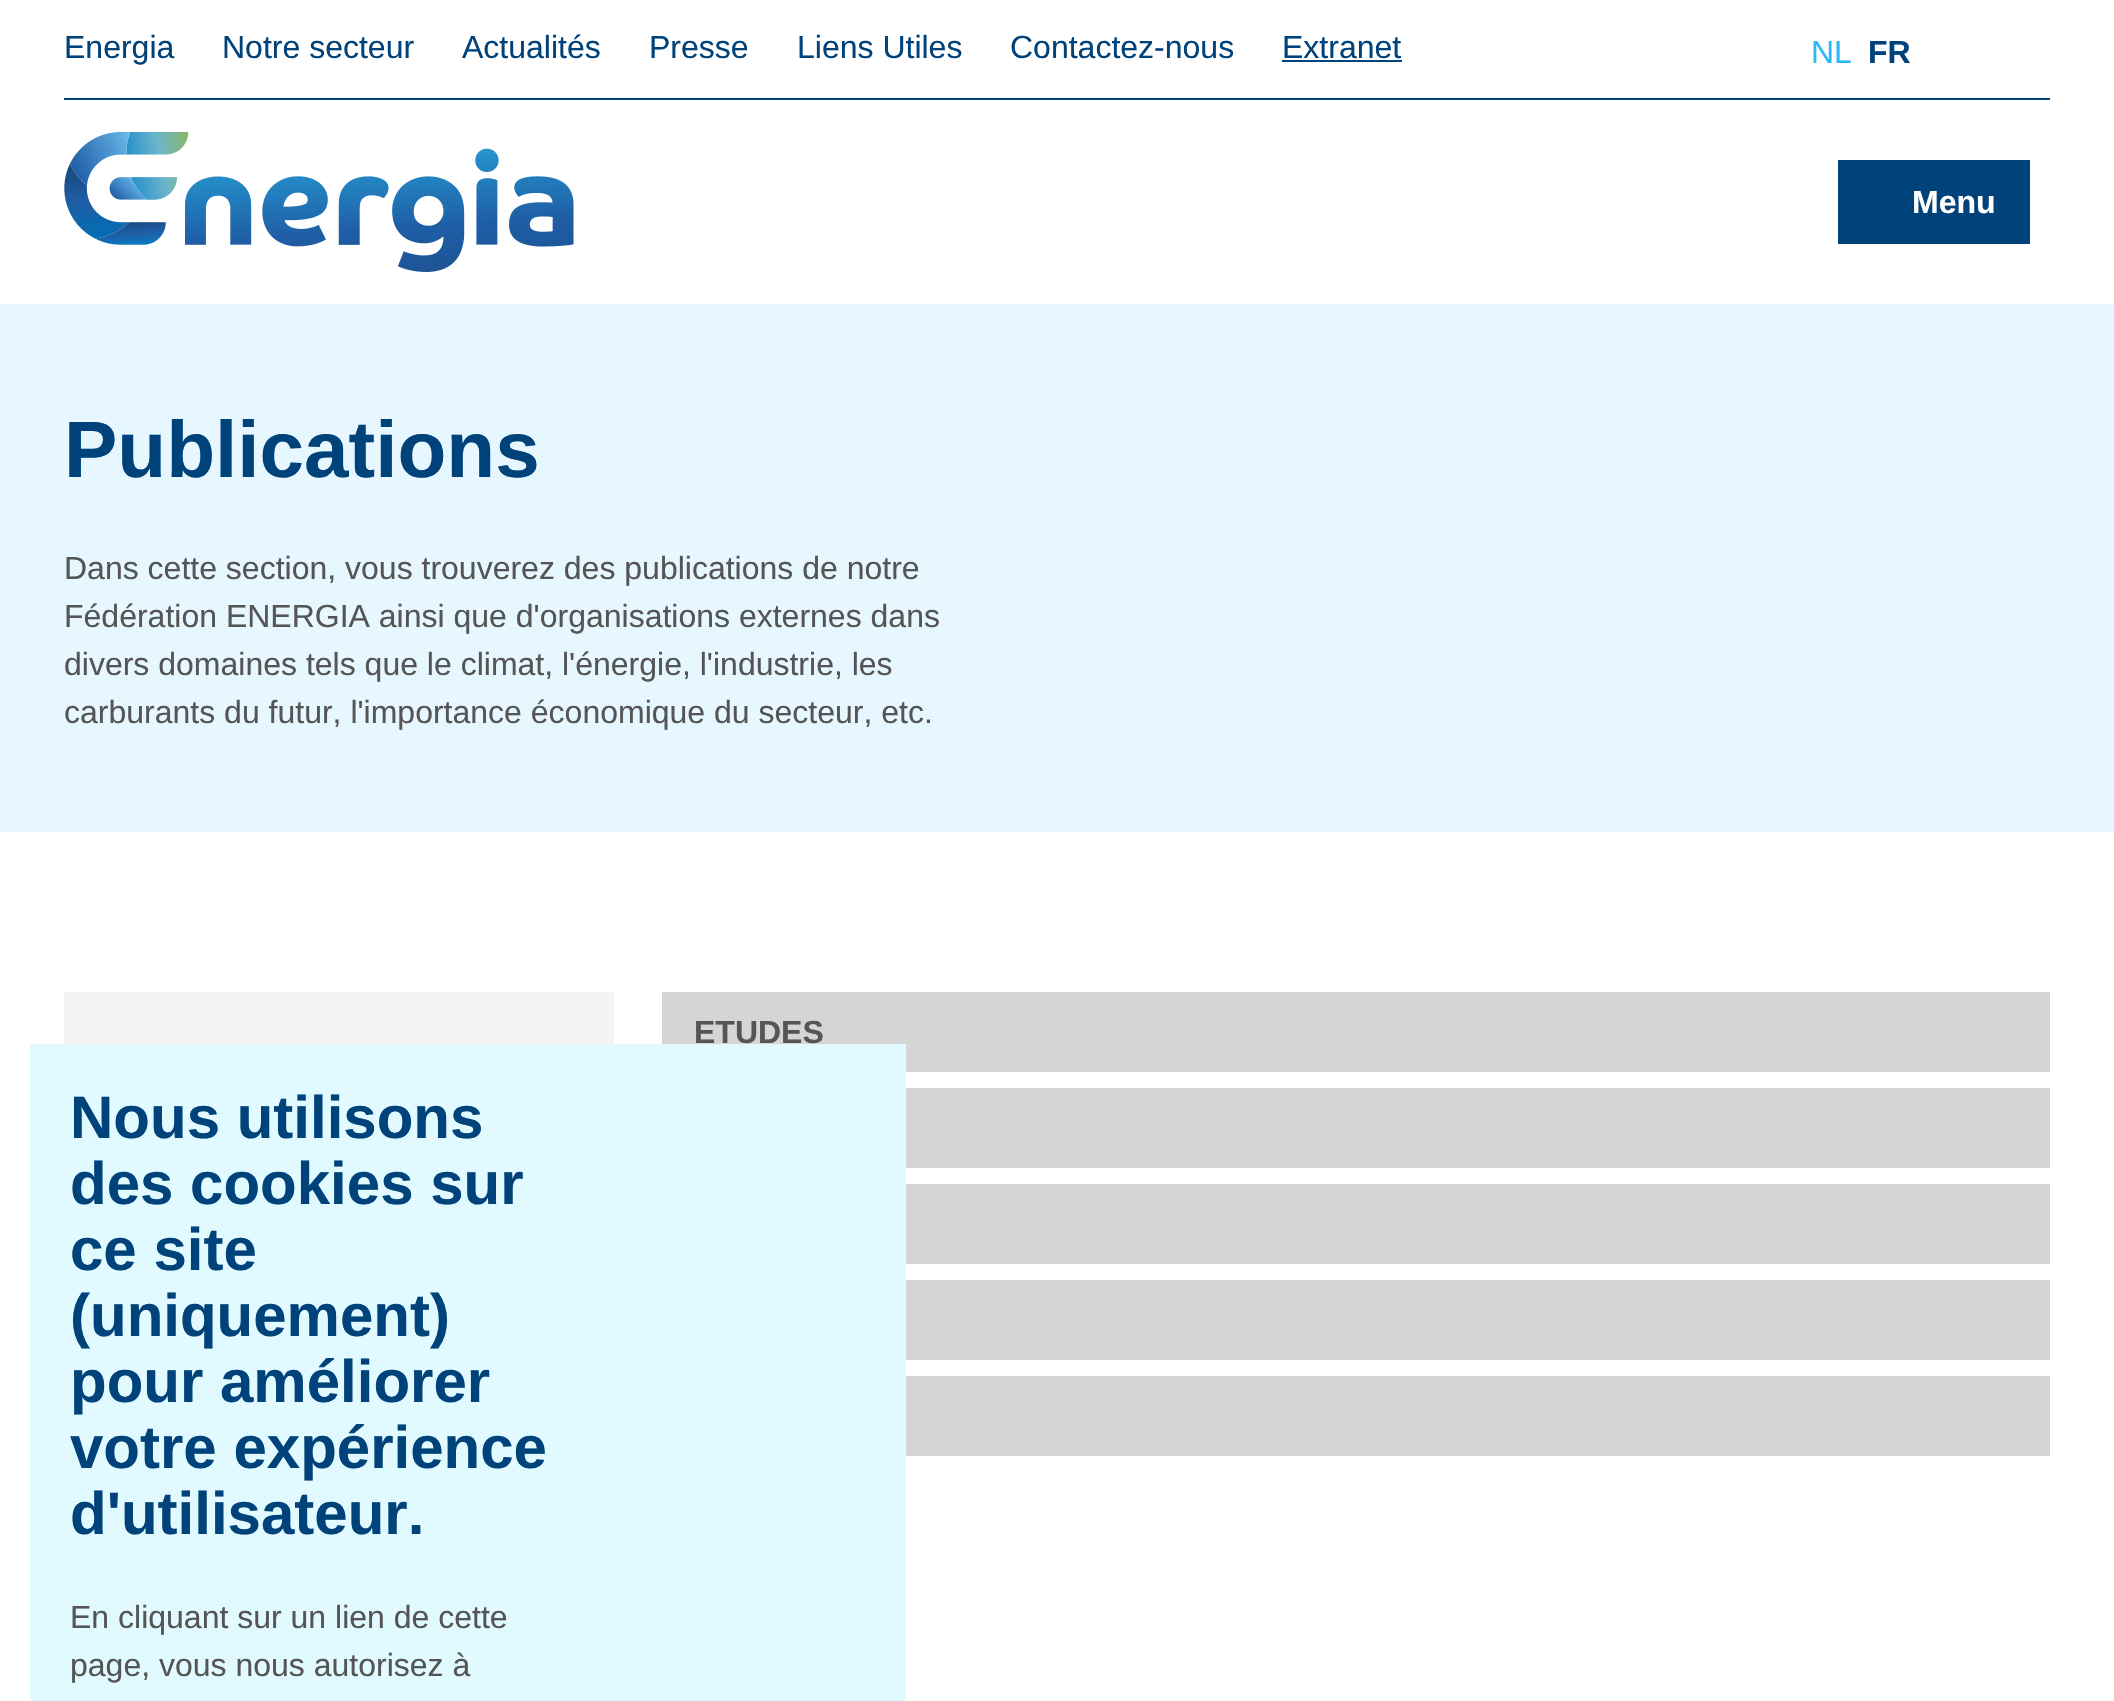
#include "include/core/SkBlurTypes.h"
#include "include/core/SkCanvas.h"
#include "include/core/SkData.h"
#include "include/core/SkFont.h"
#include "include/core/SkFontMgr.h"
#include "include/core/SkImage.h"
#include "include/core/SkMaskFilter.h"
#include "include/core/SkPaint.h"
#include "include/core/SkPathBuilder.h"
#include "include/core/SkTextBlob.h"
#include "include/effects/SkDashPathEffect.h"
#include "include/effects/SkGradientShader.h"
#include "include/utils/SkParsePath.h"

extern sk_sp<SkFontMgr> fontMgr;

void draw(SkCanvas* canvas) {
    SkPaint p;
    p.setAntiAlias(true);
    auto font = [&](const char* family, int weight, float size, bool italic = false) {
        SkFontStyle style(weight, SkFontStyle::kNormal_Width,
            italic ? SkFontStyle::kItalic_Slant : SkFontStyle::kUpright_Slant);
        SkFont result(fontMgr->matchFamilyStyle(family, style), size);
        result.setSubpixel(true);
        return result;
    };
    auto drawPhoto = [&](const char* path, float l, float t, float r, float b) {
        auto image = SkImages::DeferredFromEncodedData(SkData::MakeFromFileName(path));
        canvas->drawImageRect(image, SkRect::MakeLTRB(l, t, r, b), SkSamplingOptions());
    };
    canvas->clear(0xFFFFFFFF);
    p.setColor(0xFF00427A);
    canvas->drawRect(SkRect::MakeLTRB(64, 98, 2050, 100), p);
    auto font1 = font("Liberation Sans", 400, 32);
    {
        const struct { const char* s; float x, y; } items[] = {
            {"Energia", 64, 58},
            {"Notre secteur", 222, 58},
            {"Actualités", 462, 58},
            {"Presse", 649, 58},
            {"Liens Utiles", 797, 58},
            {"Contactez-nous", 1010, 58},
            {"Extranet", 1282, 58},
        };
        for (auto [s, x, y] : items) {
            canvas->drawString(s, x, y, font1, p);
        }
    }
    canvas->drawRect(SkRect::MakeLTRB(1282, 60, 1402, 62), p);
    p.setColor(0xFF2AB8FA);
    canvas->drawString("NL", 1811, 63, font1, p);
    auto font2 = font("Liberation Sans", 700, 32);
    p.setColor(0xFF00427A);
    canvas->drawString("FR", 1868, 63, font2, p);
    drawPhoto("media/1.png", 64, 132, 574, 272);
    canvas->drawRect(SkRect::MakeLTRB(1838, 160, 2030, 244), p);
    p.setColor(0xFFFFFFFF);
    canvas->drawString("Menu", 1912, 213, font2, p);
    p.setColor(0xFFE6F7FF);
    canvas->drawRect(SkRect::MakeLTRB(0, 304, 2114, 832), p);
    auto font3 = font("Liberation Sans", 700, 80);
    p.setColor(0xFF00427A);
    canvas->drawString("Publications", 64, 477, font3, p);
    p.setColor(0xFF555555);
    {
        const struct { const char* s; float x, y; } items[] = {
            {"Dans cette section, vous trouverez des publications de notre", 64, 579},
            {"Fédération ENERGIA ainsi que d'organisations externes dans", 64, 627},
            {"divers domaines tels que le climat, l'énergie, l'industrie, les", 64, 675},
            {"carburants du futur, l'importance économique du secteur, etc.", 64, 723},
        };
        for (auto [s, x, y] : items) {
            canvas->drawString(s, x, y, font1, p);
        }
    }
    p.setColor(0xFFF4F4F4);
    canvas->drawRect(SkRect::MakeLTRB(64, 992, 614, 1044), p);
    p.setColor(0xFFD5D5D5);
    canvas->drawRect(SkRect::MakeLTRB(662, 992, 2050, 1072), p);
    p.setColor(0xFF555555);
    canvas->drawString("ETUDES", 694, 1043, font2, p);
    {
        const struct { float l, t, r, b; SkColor color; } items[] = {
            {906, 1088, 2050, 1168, 0xFFD5D5D5},
            {906, 1184, 2050, 1264, 0xFFD5D5D5},
            {906, 1280, 2050, 1360, 0xFFD5D5D5},
            {906, 1376, 2050, 1456, 0xFFD5D5D5},
            {30, 1044, 906, 1701, 0xFFE1FAFF},
        };
        for (auto [l, t, r, b, color] : items) {
            p.setColor(color);
            canvas->drawRect(SkRect::MakeLTRB(l, t, r, b), p);
        }
    }
    auto font4 = font("Liberation Sans", 700, 60);
    p.setColor(0xFF00427A);
    {
        const struct { const char* s; float x, y; } items[] = {
            {"Nous utilisons", 70, 1138},
            {"des cookies sur", 70, 1204},
            {"ce site", 70, 1270},
            {"(uniquement)", 70, 1336},
            {"pour améliorer", 70, 1402},
            {"votre expérience", 70, 1468},
            {"d'utilisateur.", 70, 1534},
        };
        for (auto [s, x, y] : items) {
            canvas->drawString(s, x, y, font4, p);
        }
    }
    p.setColor(0xFF555555);
    canvas->drawString("En cliquant sur un lien de cette", 70, 1628, font1, p);
    canvas->drawString("page, vous nous autorisez à", 70, 1676, font1, p);
}
